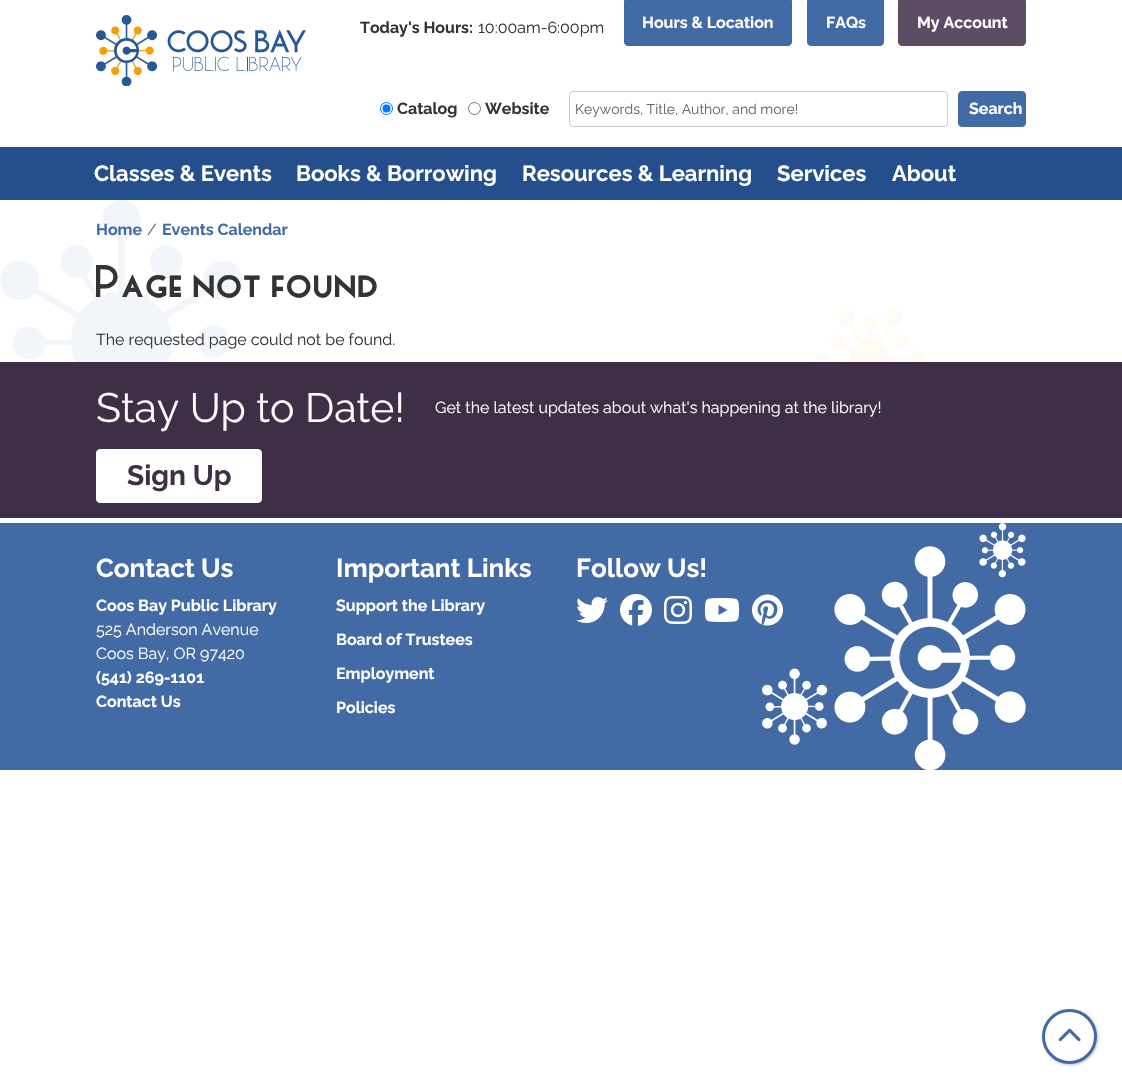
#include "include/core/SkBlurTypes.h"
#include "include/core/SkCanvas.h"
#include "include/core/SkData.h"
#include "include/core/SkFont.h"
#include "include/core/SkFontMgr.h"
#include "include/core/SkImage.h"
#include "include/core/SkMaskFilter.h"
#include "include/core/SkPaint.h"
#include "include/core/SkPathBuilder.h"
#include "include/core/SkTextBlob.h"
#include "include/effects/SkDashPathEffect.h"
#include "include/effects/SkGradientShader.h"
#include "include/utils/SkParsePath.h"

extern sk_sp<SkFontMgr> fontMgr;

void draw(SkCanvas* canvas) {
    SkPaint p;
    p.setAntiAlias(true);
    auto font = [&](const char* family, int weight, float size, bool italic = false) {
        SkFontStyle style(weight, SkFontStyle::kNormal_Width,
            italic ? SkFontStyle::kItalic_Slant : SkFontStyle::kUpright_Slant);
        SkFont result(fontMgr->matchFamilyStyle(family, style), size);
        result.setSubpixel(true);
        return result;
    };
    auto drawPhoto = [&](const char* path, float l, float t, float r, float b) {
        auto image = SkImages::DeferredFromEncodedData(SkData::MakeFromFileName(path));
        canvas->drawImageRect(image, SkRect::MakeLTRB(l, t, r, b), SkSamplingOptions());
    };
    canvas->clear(0xFFFFFFFF);
    drawPhoto("media/1.png", 96, 15, 306, 86);
    auto font1 = font("Raleway", 700, 16);
    p.setColor(0xFF333333);
    canvas->drawString("Today's Hours:", 360, 33, font1, p);
    auto font2 = font("Raleway", 400, 16);
    canvas->drawString("10:00am-6:00pm", 478, 33, font2, p);
    p.setColor(0xFF426AA5);
    canvas->drawPath(SkPathBuilder().moveTo(624.5f, 0.5f).lineTo(791.5f, 0.5f).lineTo(791.5f, 42).cubicTo(791.5f, 44, 790, 45.5f, 788, 45.5f).lineTo(628, 45.5f).cubicTo(626, 45.5f, 624.5f, 44, 624.5f, 42).close().detach(), p);
    p.setStyle(SkPaint::kStroke_Style);
    p.setStrokeWidth(1);
    canvas->drawPath(SkPathBuilder().moveTo(624.5f, 0.5f).lineTo(791.5f, 0.5f).lineTo(791.5f, 42).cubicTo(791.5f, 44, 790, 45.5f, 788, 45.5f).lineTo(628, 45.5f).cubicTo(626, 45.5f, 624.5f, 44, 624.5f, 42).close().detach(), p);
    p.setStyle(SkPaint::kFill_Style);
    p.setColor(0xFFFFFFFF);
    canvas->drawString("Hours & Location", 642, 28, font1, p);
    p.setColor(0xFF426AA5);
    canvas->drawPath(SkPathBuilder().moveTo(807.5f, 0.5f).lineTo(883.5f, 0.5f).lineTo(883.5f, 42).cubicTo(883.5f, 44, 882, 45.5f, 880, 45.5f).lineTo(811, 45.5f).cubicTo(809, 45.5f, 807.5f, 44, 807.5f, 42).close().detach(), p);
    p.setStyle(SkPaint::kStroke_Style);
    canvas->drawPath(SkPathBuilder().moveTo(807.5f, 0.5f).lineTo(883.5f, 0.5f).lineTo(883.5f, 42).cubicTo(883.5f, 44, 882, 45.5f, 880, 45.5f).lineTo(811, 45.5f).cubicTo(809, 45.5f, 807.5f, 44, 807.5f, 42).close().detach(), p);
    p.setStyle(SkPaint::kFill_Style);
    p.setColor(0xFFFFFFFF);
    canvas->drawString("FAQs", 826, 28, font1, p);
    p.setColor(0xFF5C4D64);
    canvas->drawPath(SkPathBuilder().moveTo(898.5f, 0.5f).lineTo(1025.5f, 0.5f).lineTo(1025.5f, 42).cubicTo(1025.5f, 44, 1024, 45.5f, 1022, 45.5f).lineTo(902, 45.5f).cubicTo(900, 45.5f, 898.5f, 44, 898.5f, 42).close().detach(), p);
    p.setStyle(SkPaint::kStroke_Style);
    canvas->drawPath(SkPathBuilder().moveTo(898.5f, 0.5f).lineTo(1025.5f, 0.5f).lineTo(1025.5f, 42).cubicTo(1025.5f, 44, 1024, 45.5f, 1022, 45.5f).lineTo(902, 45.5f).cubicTo(900, 45.5f, 898.5f, 44, 898.5f, 42).close().detach(), p);
    p.setStyle(SkPaint::kFill_Style);
    p.setColor(0xFFFFFFFF);
    canvas->drawString("My Account", 917, 28, font1, p);
    p.setStyle(SkPaint::kStroke_Style);
    p.setColor(0xFF0075FF);
    canvas->drawCircle(386.5f, 108.5f, 6, p);
    p.setStyle(SkPaint::kFill_Style);
    canvas->drawCircle(386.5f, 108.5f, 4, p);
    p.setColor(0xFF333333);
    canvas->drawString("Catalog", 397, 114, font1, p);
    p.setStyle(SkPaint::kStroke_Style);
    p.setColor(0xFF767676);
    canvas->drawCircle(474.5f, 108.5f, 6, p);
    p.setStyle(SkPaint::kFill_Style);
    p.setColor(0xFF333333);
    canvas->drawString("Website", 485, 114, font1, p);
    p.setStyle(SkPaint::kStroke_Style);
    p.setColor(0xFFCCCCCC);
    canvas->drawRoundRect(SkRect::MakeLTRB(569.5f, 91.5f, 947.5f, 126.5f), 3.5f, 3.5f, p);
    auto font3 = font("Raleway", 400, 14);
    p.setStyle(SkPaint::kFill_Style);
    p.setColor(0xFF666666);
    canvas->drawString("Keywords, Title, Author, and more!", 575, 114, font3, p);
    p.setColor(0xFF426AA5);
    canvas->drawRoundRect(SkRect::MakeLTRB(958.5f, 91.5f, 1025.5f, 126.5f), 3.5f, 3.5f, p);
    p.setStyle(SkPaint::kStroke_Style);
    canvas->drawRoundRect(SkRect::MakeLTRB(958.5f, 91.5f, 1025.5f, 126.5f), 3.5f, 3.5f, p);
    p.setStyle(SkPaint::kFill_Style);
    p.setColor(0xFFFFFFFF);
    canvas->drawString("Search", 969, 114, font1, p);
    p.setColor(0xFF244E8C);
    canvas->drawRect(SkRect::MakeLTRB(0, 147, 1122, 200), p);
    auto font4 = font("Raleway", 700, 22);
    p.setColor(0xFFFFFFFF);
    {
        const struct { const char* s; float x, y; } items[] = {
            {"Classes & Events", 94, 181},
            {"Books & Borrowing", 296, 181},
            {"Resources & Learning", 522, 181},
            {"Services", 777, 181},
            {"About", 892, 181},
        };
        for (auto [s, x, y] : items) {
            canvas->drawString(s, x, y, font4, p);
        }
    }
    drawPhoto("media/2.png", 0, 200, 925, 362);
    p.setColor(0xFF426AA5);
    canvas->drawString("Home", 96, 235, font1, p);
    p.setColor(0xFF666666);
    canvas->drawString("/", 147, 235, font2, p);
    p.setColor(0xFF426AA5);
    canvas->drawString("Events Calendar", 162, 235, font1, p);
    auto font5 = font("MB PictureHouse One", 700, 45);
    p.setColor(0xFF333333);
    canvas->drawString("Page not found", 96, 297, font5, p);
    canvas->drawString("The requested page could not be found.", 96, 345, font2, p);
    p.setColor(0xFF3E2F46);
    canvas->drawRect(SkRect::MakeLTRB(0, 362, 1122, 518), p);
    auto font6 = font("Raleway", 400, 41);
    p.setColor(0xFFFFFFFF);
    canvas->drawString("Stay Up to Date!", 96, 422, font6, p);
    canvas->drawString("Get the latest updates about what's happening at the library!", 435, 413, font2, p);
    canvas->drawRoundRect(SkRect::MakeLTRB(96.5f, 449.5f, 261.5f, 502.5f), 3.5f, 3.5f, p);
    p.setStyle(SkPaint::kStroke_Style);
    canvas->drawRoundRect(SkRect::MakeLTRB(96.5f, 449.5f, 261.5f, 502.5f), 3.5f, 3.5f, p);
    auto font7 = font("Raleway", 700, 28);
    p.setStyle(SkPaint::kFill_Style);
    p.setColor(0xFF3E2F46);
    canvas->drawString("Sign Up", 127, 485, font7, p);
    p.setColor(0xFF426AA5);
    canvas->drawRect(SkRect::MakeLTRB(0, 523, 1122, 770), p);
    drawPhoto("media/3.png", 762, 523, 1026, 770);
    auto font8 = font("Raleway", 700, 26);
    p.setColor(0xFFFFFFFF);
    canvas->drawString("Contact Us", 96, 577, font8, p);
    canvas->drawString("Coos Bay Public Library", 96, 611, font1, p);
    canvas->drawString("525 Anderson Avenue", 96, 635, font2, p);
    canvas->drawString("Coos Bay, OR 97420", 96, 659, font2, p);
    canvas->drawString("(541) 269-1101", 96, 683, font1, p);
    canvas->drawString("Contact Us", 96, 707, font1, p);
    canvas->drawString("Important Links", 336, 577, font8, p);
    {
        const struct { const char* s; float x, y; } items[] = {
            {"Support the Library", 336, 611},
            {"Board of Trustees", 336, 645},
            {"Employment", 336, 679},
            {"Policies", 336, 713},
        };
        for (auto [s, x, y] : items) {
            canvas->drawString(s, x, y, font1, p);
        }
    }
    canvas->drawString("Follow Us!", 576, 577, font8, p);
    drawPhoto("media/4.png", 576, 597, 608, 623);
    drawPhoto("media/5.png", 620, 594, 652, 626);
    drawPhoto("media/6.png", 664, 596, 692, 624);
    drawPhoto("media/7.png", 704, 598, 740, 622);
    drawPhoto("media/8.png", 752, 594, 783, 626);
    p.setColor(0x40000000);
    p.setMaskFilter(SkMaskFilter::MakeBlur(kNormal_SkBlurStyle, 1.5f));
    canvas->drawRoundRect(SkRect::MakeLTRB(1043, 1010, 1098, 1065), 27.5f, 27.5f, p);
    p.setMaskFilter(nullptr);
    p.setColor(0xFFFFFFFF);
    canvas->drawCircle(1069.5f, 1036.5f, 26, p);
    p.setStyle(SkPaint::kStroke_Style);
    p.setStrokeWidth(3);
    p.setColor(0xFF426AA5);
    canvas->drawCircle(1069.5f, 1036.5f, 26, p);
    drawPhoto("media/9.png", 1058, 1028, 1081, 1042);
}
